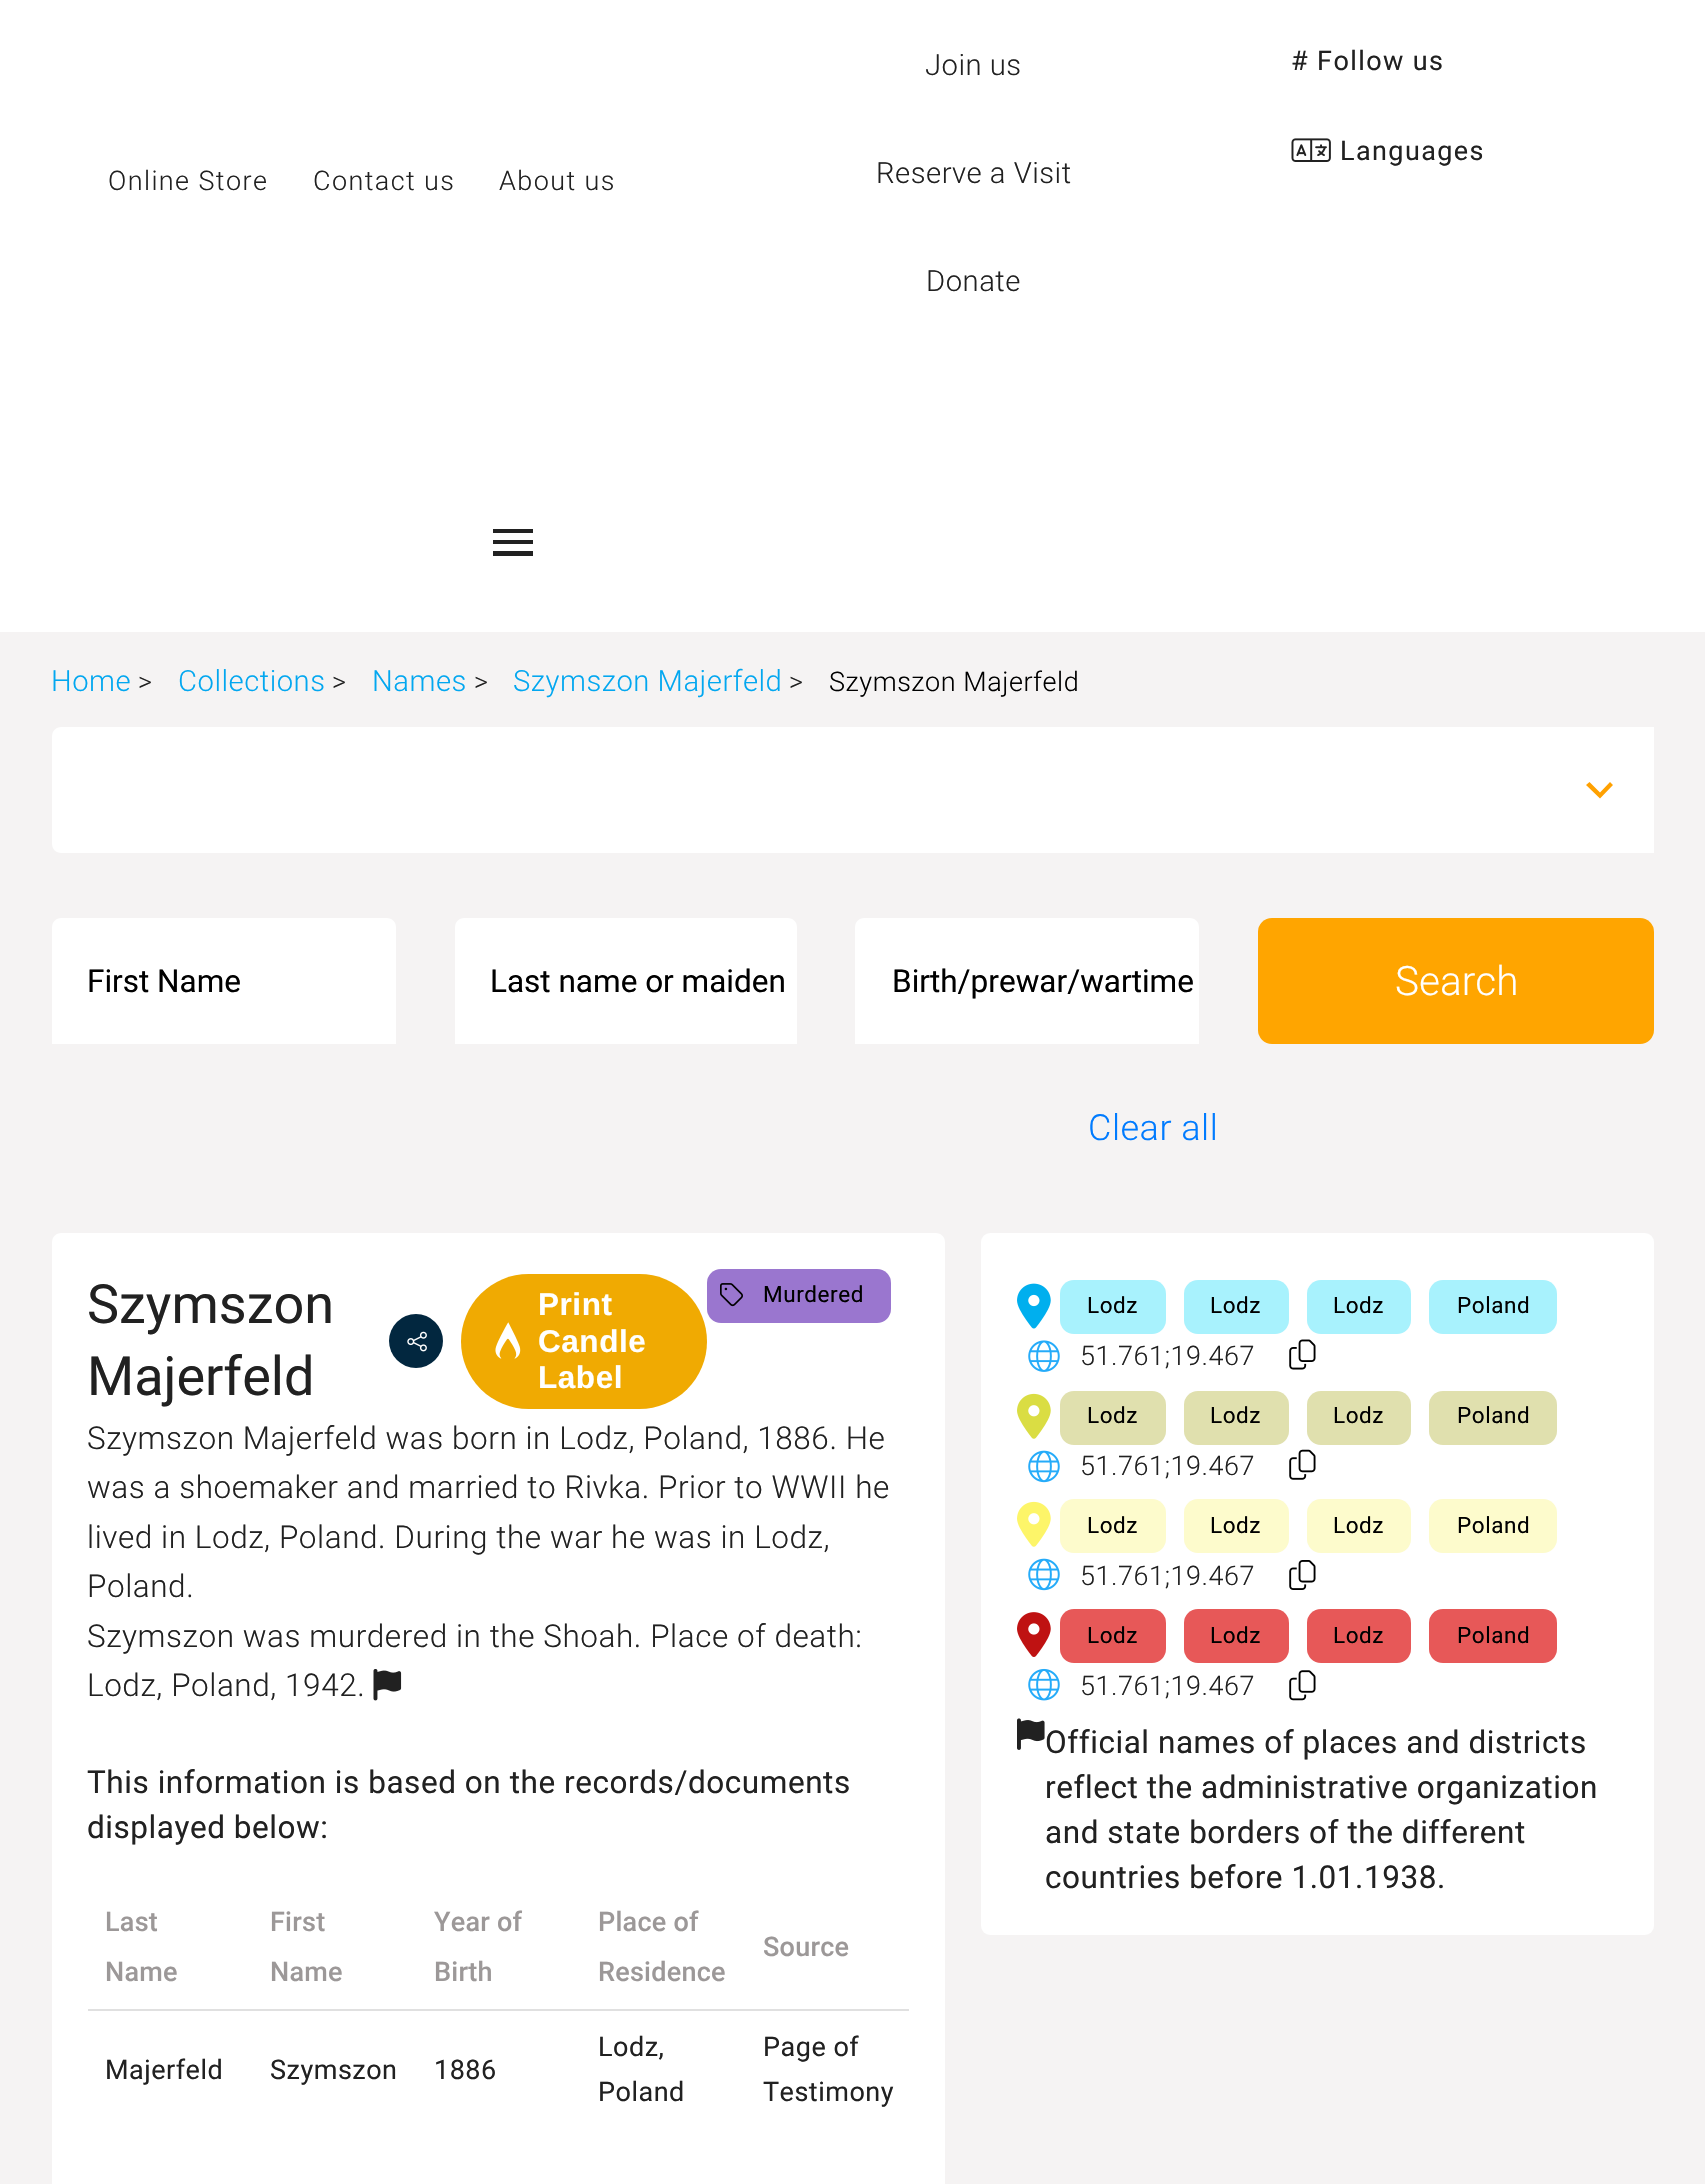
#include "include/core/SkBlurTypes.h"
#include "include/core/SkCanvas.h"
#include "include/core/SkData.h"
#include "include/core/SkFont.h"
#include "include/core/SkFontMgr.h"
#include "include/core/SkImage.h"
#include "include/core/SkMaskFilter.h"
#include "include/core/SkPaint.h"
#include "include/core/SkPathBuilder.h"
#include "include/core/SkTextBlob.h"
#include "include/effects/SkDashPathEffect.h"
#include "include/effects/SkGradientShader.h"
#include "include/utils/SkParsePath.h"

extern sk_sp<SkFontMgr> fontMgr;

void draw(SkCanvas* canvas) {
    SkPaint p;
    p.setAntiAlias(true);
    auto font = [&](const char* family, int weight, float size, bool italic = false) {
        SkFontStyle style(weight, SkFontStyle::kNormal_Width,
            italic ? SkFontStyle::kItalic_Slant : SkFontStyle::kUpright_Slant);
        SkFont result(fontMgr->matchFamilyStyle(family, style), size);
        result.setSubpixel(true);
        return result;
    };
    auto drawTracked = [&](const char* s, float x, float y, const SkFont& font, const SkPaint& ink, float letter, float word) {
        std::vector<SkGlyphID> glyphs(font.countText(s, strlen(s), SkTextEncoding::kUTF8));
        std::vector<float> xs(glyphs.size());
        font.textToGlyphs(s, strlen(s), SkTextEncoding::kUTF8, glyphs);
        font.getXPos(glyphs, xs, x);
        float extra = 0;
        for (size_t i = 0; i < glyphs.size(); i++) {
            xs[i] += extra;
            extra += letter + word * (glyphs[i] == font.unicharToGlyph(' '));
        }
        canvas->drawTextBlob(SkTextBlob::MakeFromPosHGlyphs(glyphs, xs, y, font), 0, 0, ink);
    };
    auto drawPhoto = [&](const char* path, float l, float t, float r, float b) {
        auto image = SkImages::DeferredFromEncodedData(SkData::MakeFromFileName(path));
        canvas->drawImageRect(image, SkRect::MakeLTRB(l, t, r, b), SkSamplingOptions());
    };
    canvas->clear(0xFFF5F3F3);
    p.setColor(0xFFFFFFFF);
    canvas->drawRect(SkRect::MakeLTRB(0, 0, 1705, 632), p);
    auto font1 = font("Roboto", 300, 27);
    p.setColor(0xFF212121);
    {
        const struct { const char* s; float x, y; } items[] = {
            {"Online Store", 108, 190},
            {"Contact us", 313, 190},
            {"About us", 499, 190},
        };
        for (auto [s, x, y] : items) {
            drawTracked(s, x, y, font1, p, 1.4f, 0);
        }
    }
    auto font2 = font("Roboto", 300, 29.25f);
    {
        const struct { const char* s; float x, y; } items[] = {
            {"Join us", 925, 75},
            {"Reserve a Visit", 876, 183},
            {"Donate", 926, 291},
        };
        for (auto [s, x, y] : items) {
            drawTracked(s, x, y, font2, p, 0.5f, 0);
        }
    }
    auto font3 = font("Roboto", 400, 27);
    drawTracked("# Follow us", 1291, 70, font3, p, 1.4f, 0);
    drawPhoto("media/1.png", 1291, 138, 1331, 162);
    drawTracked("Languages", 1340, 160, font3, p, 1.4f, 0);
    canvas->drawPath(SkPathBuilder().moveTo(493, 529).lineTo(533, 529).lineTo(533, 533).lineTo(493, 533).close().moveTo(493, 544).lineTo(493, 540).lineTo(533, 540).lineTo(533, 544).close().moveTo(493, 556).lineTo(493, 551).lineTo(533, 551).lineTo(533, 556).close().detach(), p);
    p.setColor(0xFF02A7F0);
    drawTracked("Home", 51, 691, font2, p, 0.5f, 0);
    auto font4 = font("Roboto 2", 300, 27);
    p.setColor(0xFF212121);
    drawTracked(">", 138, 691, font4, p, 0.55f, 0);
    p.setColor(0xFF02A7F0);
    drawTracked("Collections", 178, 691, font2, p, 0.5f, 0);
    p.setColor(0xFF212121);
    drawTracked(">", 332, 691, font4, p, 0.55f, 0);
    p.setColor(0xFF02A7F0);
    drawTracked("Names", 372, 691, font2, p, 0.5f, 0);
    p.setColor(0xFF212121);
    drawTracked(">", 474, 691, font4, p, 0.55f, 0);
    p.setColor(0xFF02A7F0);
    drawTracked("Szymszon Majerfeld", 513, 691, font2, p, 0.5f, 0);
    p.setColor(0xFF212121);
    drawTracked(">", 789, 691, font4, p, 0.55f, 0);
    p.setColor(0xFF000000);
    drawTracked("Szymszon Majerfeld", 829, 691, font4, p, 0.55f, 0);
    p.setColor(0xFFFFFFFF);
    canvas->drawPath(SkPathBuilder().moveTo(61, 727).lineTo(1654, 727).lineTo(1654, 853).lineTo(61, 853).cubicTo(56, 853, 52, 849, 52, 844).lineTo(52, 736).cubicTo(52, 731, 56, 727, 61, 727).close().detach(), p);
    p.setColor(0xFFFFA101);
    canvas->drawPath(SkPathBuilder().moveTo(1589.5f, 782).lineTo(1600, 792.5f).lineTo(1610, 782).lineTo(1613, 785).lineTo(1600, 798.5f).lineTo(1586, 785).close().detach(), p);
    p.setColor(0xFFFFFFFF);
    canvas->drawPath(SkPathBuilder().moveTo(61, 918).lineTo(387, 918).cubicTo(392, 918, 396, 922, 396, 927).lineTo(396, 1044).lineTo(52, 1044).lineTo(52, 927).cubicTo(52, 922, 56, 918, 61, 918).close().detach(), p);
    auto font5 = font("Roboto", 400, 31.5f);
    p.setColor(0xFF000000);
    canvas->drawString("First Name", 87, 992, font5, p);
    p.setColor(0xFFFFFFFF);
    canvas->drawPath(SkPathBuilder().moveTo(464, 918).lineTo(788, 918).cubicTo(793, 918, 797, 922, 797, 927).lineTo(797, 1044).lineTo(455, 1044).lineTo(455, 927).cubicTo(455, 922, 459, 918, 464, 918).close().detach(), p);
    p.setColor(0xFF000000);
    canvas->drawString("Last name or maiden", 490, 992, font5, p);
    p.setColor(0xFFFFFFFF);
    canvas->drawPath(SkPathBuilder().moveTo(864, 918).lineTo(1190, 918).cubicTo(1195, 918, 1199, 922, 1199, 927).lineTo(1199, 1044).lineTo(855, 1044).lineTo(855, 927).cubicTo(855, 922, 859, 918, 864, 918).close().detach(), p);
    p.setColor(0xFF000000);
    canvas->drawString("Birth/prewar/wartime", 892, 992, font5, p);
    p.setColor(0xFFFFA500);
    canvas->drawRoundRect(SkRect::MakeLTRB(1258, 918, 1654, 1044), 14, 14, p);
    auto font6 = font("Roboto", 300, 40.5f);
    p.setColor(0xFFFFFFFF);
    canvas->drawString("Search", 1395, 995, font6, p);
    auto font7 = font("Roboto", 300, 36);
    p.setColor(0xFF007BFF);
    drawTracked("Clear all", 1088, 1140, font7, p, 0.5f, 0);
    p.setColor(0xFFFFFFFF);
    canvas->drawPath(SkPathBuilder().moveTo(61, 1233).lineTo(936, 1233).cubicTo(941, 1233, 945, 1237, 945, 1242).lineTo(945, 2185).lineTo(52, 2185).lineTo(52, 1242).cubicTo(52, 1237, 56, 1233, 61, 1233).close().detach(), p);
    auto font8 = font("Roboto", 400, 54);
    p.setColor(0xFF212121);
    canvas->drawString("Szymszon", 87, 1323, font8, p);
    canvas->drawString("Majerfeld", 87, 1395, font8, p);
    p.setColor(0xFF02273F);
    canvas->drawCircle(416, 1341, 27, p);
    drawPhoto("media/2.png", 407, 1331, 427, 1352);
    p.setColor(0xFFF0AA02);
    canvas->drawRoundRect(SkRect::MakeLTRB(461, 1274, 707, 1409), 67.5f, 67.5f, p);
    drawPhoto("media/3.png", 495, 1322, 521, 1359);
    auto font9 = font("Liberation Sans", 700, 31.5f);
    p.setColor(0xFFFFFFFF);
    {
        const struct { const char* s; float x, y; } items[] = {
            {"Print", 538, 1315},
            {"Candle", 538, 1352},
            {"Label", 538, 1388},
        };
        for (auto [s, x, y] : items) {
            drawTracked(s, x, y, font9, p, 0.55f, 0);
        }
    }
    p.setColor(0xFF9A76CF);
    canvas->drawRoundRect(SkRect::MakeLTRB(707, 1269, 891, 1323), 14, 14, p);
    drawPhoto("media/4.png", 720, 1283, 743, 1307);
    auto font10 = font("Roboto", 400, 22.5f);
    p.setColor(0xFF000000);
    drawTracked("Murdered", 763, 1302, font10, p, 0.55f, 0);
    auto font11 = font("Roboto", 300, 31.5f);
    p.setColor(0xFF212121);
    {
        const struct { const char* s; float x, y; } items[] = {
            {"Szymszon Majerfeld was born in Lodz, Poland, 1886. He", 87, 1449},
            {"was a shoemaker and married to Rivka. Prior to WWII he", 87, 1498},
            {"lived in Lodz, Poland. During the war he was in Lodz,", 87, 1548},
            {"Poland.", 87, 1597},
            {"Szymszon was murdered in the Shoah. Place of death:", 87, 1647},
            {"Lodz, Poland, 1942.", 87, 1696},
        };
        for (auto [s, x, y] : items) {
            drawTracked(s, x, y, font11, p, 0.55f, 0);
        }
    }
    drawPhoto("media/5.png", 373, 1669, 402, 1701);
    drawTracked("This information is based on the records/documents", 87, 1793, font5, p, 0.55f, 0);
    drawTracked("displayed below:", 87, 1838, font5, p, 0.55f, 0);
    p.setColor(0xFFE0E0E0);
    canvas->drawRect(SkRect::MakeLTRB(88, 2009, 909, 2011), p);
    auto font12 = font("Roboto", 500, 27);
    p.setColor(0xFF9C9898);
    {
        const struct { const char* s; float x, y; } items[] = {
            {"Last", 105, 1931},
            {"Name", 105, 1981},
            {"First", 270, 1931},
            {"Name", 270, 1981},
            {"Year of", 434, 1931},
            {"Birth", 434, 1981},
            {"Place of", 598, 1931},
            {"Residence", 598, 1981},
            {"Source", 763, 1956},
        };
        for (auto [s, x, y] : items) {
            drawTracked(s, x, y, font12, p, 0.25f, 0);
        }
    }
    p.setColor(0xFF212121);
    {
        const struct { const char* s; float x, y; } items[] = {
            {"Majerfeld", 105, 2079},
            {"Szymszon", 270, 2079},
            {"1886", 434, 2079},
            {"Lodz,", 598, 2056},
            {"Poland", 598, 2101},
            {"Page of", 763, 2056},
            {"Testimony", 763, 2101},
        };
        for (auto [s, x, y] : items) {
            drawTracked(s, x, y, font3, p, 0.5f, 0);
        }
    }
    p.setColor(0xFFFFFFFF);
    canvas->drawRoundRect(SkRect::MakeLTRB(981, 1233, 1654, 1935), 9, 9, p);
    drawPhoto("media/6.png", 1017, 1283, 1051, 1329);
    p.setColor(0xFFA8F2FD);
    canvas->drawRoundRect(SkRect::MakeLTRB(1060, 1280, 1166, 1334), 14, 14, p);
    p.setColor(0xFF000000);
    drawTracked("Lodz", 1087, 1313, font10, p, 0.55f, 0);
    p.setColor(0xFFA8F2FD);
    canvas->drawRoundRect(SkRect::MakeLTRB(1184, 1280, 1289, 1334), 14, 14, p);
    p.setColor(0xFF000000);
    drawTracked("Lodz", 1210, 1313, font10, p, 0.55f, 0);
    p.setColor(0xFFA8F2FD);
    canvas->drawRoundRect(SkRect::MakeLTRB(1307, 1280, 1411, 1334), 14, 14, p);
    p.setColor(0xFF000000);
    drawTracked("Lodz", 1333, 1313, font10, p, 0.55f, 0);
    p.setColor(0xFFA8F2FD);
    canvas->drawRoundRect(SkRect::MakeLTRB(1429, 1280, 1557, 1334), 14, 14, p);
    p.setColor(0xFF000000);
    drawTracked("Poland", 1457, 1313, font10, p, 0.55f, 0);
    drawPhoto("media/7.png", 1028, 1340, 1060, 1372);
    p.setColor(0xFF212121);
    drawTracked("51.761;19.467", 1080, 1365, font1, p, 0.55f, 0);
    drawPhoto("media/8.png", 1289, 1339, 1316, 1370);
    drawPhoto("media/9.png", 1017, 1393, 1051, 1439);
    p.setColor(0xFFE0E0AE);
    canvas->drawRoundRect(SkRect::MakeLTRB(1060, 1391, 1166, 1445), 14, 14, p);
    p.setColor(0xFF000000);
    drawTracked("Lodz", 1087, 1423, font10, p, 0.55f, 0);
    p.setColor(0xFFE0E0AE);
    canvas->drawRoundRect(SkRect::MakeLTRB(1184, 1391, 1289, 1445), 14, 14, p);
    p.setColor(0xFF000000);
    drawTracked("Lodz", 1210, 1423, font10, p, 0.55f, 0);
    p.setColor(0xFFE0E0AE);
    canvas->drawRoundRect(SkRect::MakeLTRB(1307, 1391, 1411, 1445), 14, 14, p);
    p.setColor(0xFF000000);
    drawTracked("Lodz", 1333, 1423, font10, p, 0.55f, 0);
    p.setColor(0xFFE0E0AE);
    canvas->drawRoundRect(SkRect::MakeLTRB(1429, 1391, 1557, 1445), 14, 14, p);
    p.setColor(0xFF000000);
    drawTracked("Poland", 1457, 1423, font10, p, 0.55f, 0);
    drawPhoto("media/10.png", 1028, 1450, 1060, 1483);
    p.setColor(0xFF212121);
    drawTracked("51.761;19.467", 1080, 1475, font1, p, 0.55f, 0);
    drawPhoto("media/11.png", 1289, 1449, 1316, 1480);
    drawPhoto("media/12.png", 1017, 1501, 1051, 1547);
    p.setColor(0xFFFDFBCC);
    canvas->drawRoundRect(SkRect::MakeLTRB(1060, 1499, 1166, 1553), 14, 14, p);
    p.setColor(0xFF000000);
    drawTracked("Lodz", 1087, 1533, font10, p, 0.55f, 0);
    p.setColor(0xFFFDFBCC);
    canvas->drawRoundRect(SkRect::MakeLTRB(1184, 1499, 1289, 1553), 14, 14, p);
    p.setColor(0xFF000000);
    drawTracked("Lodz", 1210, 1533, font10, p, 0.55f, 0);
    p.setColor(0xFFFDFBCC);
    canvas->drawRoundRect(SkRect::MakeLTRB(1307, 1499, 1411, 1553), 14, 14, p);
    p.setColor(0xFF000000);
    drawTracked("Lodz", 1333, 1533, font10, p, 0.55f, 0);
    p.setColor(0xFFFDFBCC);
    canvas->drawRoundRect(SkRect::MakeLTRB(1429, 1499, 1557, 1553), 14, 14, p);
    p.setColor(0xFF000000);
    drawTracked("Poland", 1457, 1533, font10, p, 0.55f, 0);
    drawPhoto("media/10.png", 1028, 1558, 1060, 1591);
    p.setColor(0xFF212121);
    drawTracked("51.761;19.467", 1080, 1585, font1, p, 0.55f, 0);
    drawPhoto("media/13.png", 1289, 1560, 1316, 1590);
    drawPhoto("media/14.png", 1017, 1612, 1051, 1657);
    p.setColor(0xFFE75858);
    canvas->drawRoundRect(SkRect::MakeLTRB(1060, 1609, 1166, 1663), 14, 14, p);
    p.setColor(0xFF000000);
    drawTracked("Lodz", 1087, 1643, font10, p, 0.55f, 0);
    p.setColor(0xFFE75858);
    canvas->drawRoundRect(SkRect::MakeLTRB(1184, 1609, 1289, 1663), 14, 14, p);
    p.setColor(0xFF000000);
    drawTracked("Lodz", 1210, 1643, font10, p, 0.55f, 0);
    p.setColor(0xFFE75858);
    canvas->drawRoundRect(SkRect::MakeLTRB(1307, 1609, 1411, 1663), 14, 14, p);
    p.setColor(0xFF000000);
    drawTracked("Lodz", 1333, 1643, font10, p, 0.55f, 0);
    p.setColor(0xFFE75858);
    canvas->drawRoundRect(SkRect::MakeLTRB(1429, 1609, 1557, 1663), 14, 14, p);
    p.setColor(0xFF000000);
    drawTracked("Poland", 1457, 1643, font10, p, 0.55f, 0);
    drawPhoto("media/15.png", 1028, 1668, 1060, 1701);
    p.setColor(0xFF212121);
    drawTracked("51.761;19.467", 1080, 1695, font1, p, 0.55f, 0);
    drawPhoto("media/16.png", 1289, 1670, 1316, 1701);
    drawPhoto("media/17.png", 1017, 1718, 1045, 1750);
    {
        const struct { const char* s; float x, y; } items[] = {
            {"Official names of places and districts", 1045, 1753},
            {"reflect the administrative organization", 1045, 1798},
            {"and state borders of the different", 1045, 1843},
            {"countries before 1.01.1938.", 1045, 1888},
        };
        for (auto [s, x, y] : items) {
            drawTracked(s, x, y, font5, p, 0.55f, 0);
        }
    }
}
